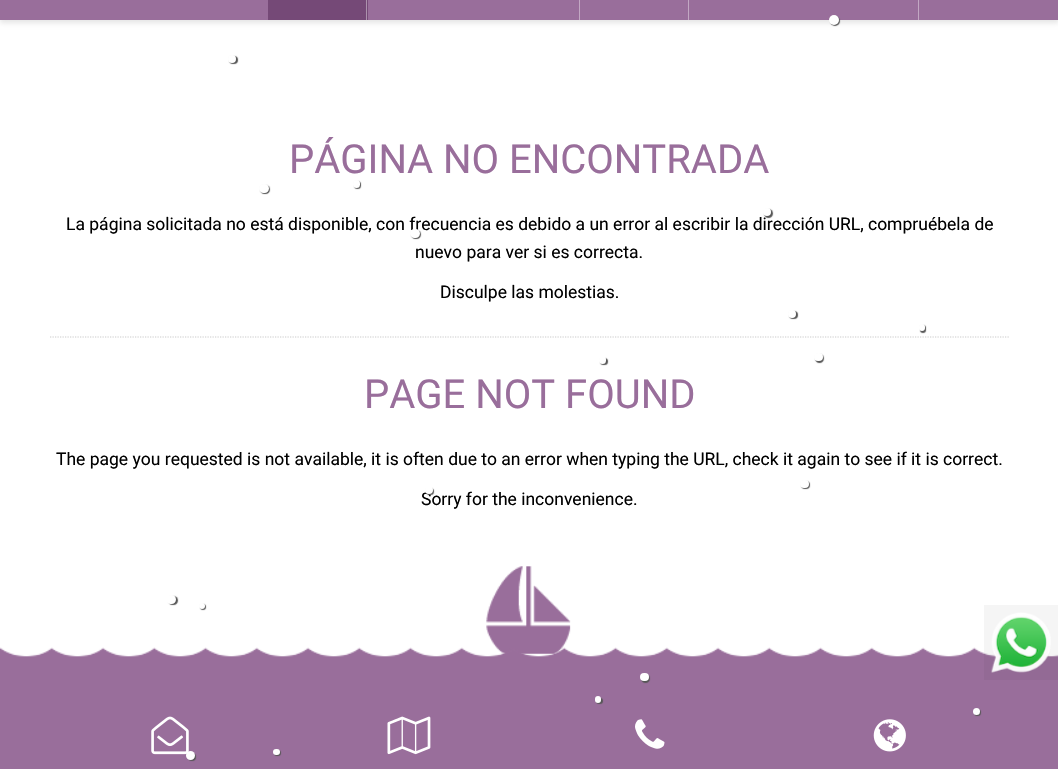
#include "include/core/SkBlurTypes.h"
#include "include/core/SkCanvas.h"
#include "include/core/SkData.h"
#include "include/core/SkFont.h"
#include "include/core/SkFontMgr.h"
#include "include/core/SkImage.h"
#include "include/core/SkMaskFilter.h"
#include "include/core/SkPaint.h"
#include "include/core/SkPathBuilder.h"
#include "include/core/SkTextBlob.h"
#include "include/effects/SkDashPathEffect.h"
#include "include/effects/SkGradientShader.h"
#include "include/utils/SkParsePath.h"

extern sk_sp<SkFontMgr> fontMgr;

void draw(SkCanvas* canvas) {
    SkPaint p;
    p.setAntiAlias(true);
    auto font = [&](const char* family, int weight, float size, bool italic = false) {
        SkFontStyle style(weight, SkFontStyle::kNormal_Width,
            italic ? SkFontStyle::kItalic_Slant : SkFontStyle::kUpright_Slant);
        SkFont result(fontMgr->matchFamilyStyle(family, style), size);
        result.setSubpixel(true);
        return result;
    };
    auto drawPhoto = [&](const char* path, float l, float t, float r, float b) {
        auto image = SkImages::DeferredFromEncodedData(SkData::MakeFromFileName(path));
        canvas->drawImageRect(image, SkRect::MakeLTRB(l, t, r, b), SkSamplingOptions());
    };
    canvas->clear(0xFFFFFFFF);
    p.setColor(0x1A000000);
    p.setMaskFilter(SkMaskFilter::MakeBlur(kNormal_SkBlurStyle, 2.5f));
    canvas->drawRect(SkRect::MakeLTRB(0, -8, 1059, 23), p);
    p.setMaskFilter(nullptr);
    p.setColor(0xFF996E9B);
    canvas->drawRect(SkRect::MakeLTRB(0, 0, 1058, 20), p);
    p.setColor(0xFF555555);
    p.setMaskFilter(SkMaskFilter::MakeBlur(kNormal_SkBlurStyle, 0.5f));
    canvas->drawRoundRect(SkRect::MakeLTRB(830, 16, 840, 26), 5, 5, p);
    p.setMaskFilter(nullptr);
    p.setColor(0xFFFFFFFF);
    canvas->drawCircle(834, 20, 5, p);
    p.setColor(0xFF555555);
    p.setMaskFilter(SkMaskFilter::MakeBlur(kNormal_SkBlurStyle, 0.5f));
    canvas->drawRoundRect(SkRect::MakeLTRB(229, 56, 238, 64), 4, 4, p);
    p.setMaskFilter(nullptr);
    p.setColor(0xFFFFFFFF);
    canvas->drawCircle(232, 59, 4, p);
    {
        const struct { float l, t, r, b; SkColor color; } items[] = {
            {268, 0, 368, 20, 0xFF754977},
            {366, 0, 367, 20, 0xFFAC92AD},
            {579, 0, 580, 20, 0xFFC2A8C3},
            {688, 0, 689, 20, 0xFFC2A8C3},
            {918, 0, 919, 20, 0xFFC2A8C3},
        };
        for (auto [l, t, r, b, color] : items) {
            p.setColor(color);
            canvas->drawRect(SkRect::MakeLTRB(l, t, r, b), p);
        }
    }
    p.setStyle(SkPaint::kStroke_Style);
    p.setStrokeWidth(1.2f);
    p.setColor(0xFFCCCCCC);
    p.setPathEffect(SkDashPathEffect::Make({{1.25f, 1.25f}}, 0));
    canvas->drawPath(SkPathBuilder().moveTo(50, 337).lineTo(1010, 337).detach(), p);
    p.setPathEffect(nullptr);
    auto font1 = font("Roboto", 400, 40);
    p.setStyle(SkPaint::kFill_Style);
    p.setColor(0xFF996E9B);
    canvas->drawString("PÁGINA NO ENCONTRADA", 289, 173, font1, p);
    auto font2 = font("Roboto", 400, 17.5f);
    p.setColor(0xFF000000);
    {
        const struct { const char* s; float x, y; } items[] = {
            {"La página solicitada no está disponible, con frecuencia es debido a un error al escribir la dirección URL, compruébela de", 66, 230},
            {"nuevo para ver si es correcta.", 415, 258},
            {"Disculpe las molestias.", 440, 298},
        };
        for (auto [s, x, y] : items) {
            canvas->drawString(s, x, y, font2, p);
        }
    }
    p.setColor(0xFF996E9B);
    canvas->drawString("PAGE NOT FOUND", 364, 408, font1, p);
    p.setColor(0xFF000000);
    canvas->drawString("The page you requested is not available, it is often due to an error when typing the URL, check it again to see if it is correct.", 56, 465, font2, p);
    canvas->drawString("Sorry for the inconvenience.", 421, 505, font2, p);
    drawPhoto("media/1.png", 486, 566, 571, 654);
    drawPhoto("media/3.png", 0, 647, 1058, 769);
    p.setColor(0x0A000000);
    canvas->drawRect(SkRect::MakeLTRB(984, 605, 1058, 680), p);
    drawPhoto("media/2.png", 991, 612, 1051, 673);
    drawPhoto("media/4.png", 151, 716, 189, 755);
    drawPhoto("media/5.png", 387, 716, 431, 755);
    drawPhoto("media/6.png", 635, 719, 665, 749);
    drawPhoto("media/7.png", 873, 719, 906, 752);
    p.setColor(0xFF555555);
    p.setMaskFilter(SkMaskFilter::MakeBlur(kNormal_SkBlurStyle, 0.5f));
    canvas->drawRoundRect(SkRect::MakeLTRB(260, 185, 270, 194), 4.5f, 4.5f, p);
    p.setMaskFilter(nullptr);
    p.setColor(0xFFFFFFFF);
    canvas->drawRoundRect(SkRect::MakeLTRB(259, 184, 269, 193), 4.5f, 4.5f, p);
    p.setColor(0xFF555555);
    p.setMaskFilter(SkMaskFilter::MakeBlur(kNormal_SkBlurStyle, 0.5f));
    canvas->drawRoundRect(SkRect::MakeLTRB(354, 181, 361, 189), 3.5f, 3.5f, p);
    p.setMaskFilter(nullptr);
    p.setColor(0xFFFFFFFF);
    canvas->drawRoundRect(SkRect::MakeLTRB(353, 180, 360, 188), 3.5f, 3.5f, p);
    p.setColor(0xFF555555);
    p.setMaskFilter(SkMaskFilter::MakeBlur(kNormal_SkBlurStyle, 0.5f));
    canvas->drawRoundRect(SkRect::MakeLTRB(764, 209, 773, 218), 4.5f, 4.5f, p);
    p.setMaskFilter(nullptr);
    p.setColor(0xFFFFFFFF);
    canvas->drawCircle(767, 212, 4, p);
    p.setColor(0xFF555555);
    p.setMaskFilter(SkMaskFilter::MakeBlur(kNormal_SkBlurStyle, 0.5f));
    canvas->drawRoundRect(SkRect::MakeLTRB(411, 230, 421, 239), 4.5f, 4.5f, p);
    p.setMaskFilter(nullptr);
    p.setColor(0xFFFFFFFF);
    canvas->drawRoundRect(SkRect::MakeLTRB(410, 229, 420, 238), 4.5f, 4.5f, p);
    p.setColor(0xFF555555);
    p.setMaskFilter(SkMaskFilter::MakeBlur(kNormal_SkBlurStyle, 0.5f));
    canvas->drawRoundRect(SkRect::MakeLTRB(789, 311, 798, 319), 4, 4, p);
    p.setMaskFilter(nullptr);
    p.setColor(0xFFFFFFFF);
    canvas->drawCircle(792, 314, 4, p);
    p.setColor(0xFF555555);
    p.setMaskFilter(SkMaskFilter::MakeBlur(kNormal_SkBlurStyle, 0.5f));
    canvas->drawRoundRect(SkRect::MakeLTRB(920, 325, 926, 333), 3, 3, p);
    p.setMaskFilter(nullptr);
    p.setColor(0xFFFFFFFF);
    canvas->drawRoundRect(SkRect::MakeLTRB(919, 324, 925, 331), 3, 3, p);
    p.setColor(0xFF555555);
    p.setMaskFilter(SkMaskFilter::MakeBlur(kNormal_SkBlurStyle, 0.5f));
    canvas->drawRoundRect(SkRect::MakeLTRB(600, 358, 608, 365), 3.5f, 3.5f, p);
    p.setMaskFilter(nullptr);
    p.setColor(0xFFFFFFFF);
    canvas->drawRoundRect(SkRect::MakeLTRB(599, 356, 606, 364), 3.5f, 3.5f, p);
    p.setColor(0xFF555555);
    p.setMaskFilter(SkMaskFilter::MakeBlur(kNormal_SkBlurStyle, 0.5f));
    canvas->drawRoundRect(SkRect::MakeLTRB(815, 354, 824, 363), 4.5f, 4.5f, p);
    p.setMaskFilter(nullptr);
    p.setColor(0xFFFFFFFF);
    canvas->drawRoundRect(SkRect::MakeLTRB(814, 353, 823, 361), 4, 4, p);
    p.setColor(0xFF555555);
    p.setMaskFilter(SkMaskFilter::MakeBlur(kNormal_SkBlurStyle, 0.5f));
    canvas->drawRoundRect(SkRect::MakeLTRB(426, 488, 434, 495), 3.5f, 3.5f, p);
    p.setMaskFilter(nullptr);
    p.setColor(0xFFFFFFFF);
    canvas->drawCircle(429, 490, 4, p);
    p.setColor(0xFF555555);
    p.setMaskFilter(SkMaskFilter::MakeBlur(kNormal_SkBlurStyle, 0.5f));
    canvas->drawRoundRect(SkRect::MakeLTRB(801, 481, 810, 489), 4, 4, p);
    p.setMaskFilter(nullptr);
    p.setColor(0xFFFFFFFF);
    canvas->drawRoundRect(SkRect::MakeLTRB(800, 480, 809, 488), 4, 4, p);
    p.setColor(0xFF555555);
    p.setMaskFilter(SkMaskFilter::MakeBlur(kNormal_SkBlurStyle, 0.5f));
    canvas->drawRoundRect(SkRect::MakeLTRB(168, 596, 178, 605), 4.5f, 4.5f, p);
    p.setMaskFilter(nullptr);
    p.setColor(0xFFFFFFFF);
    canvas->drawRoundRect(SkRect::MakeLTRB(166, 595, 176, 604), 4.5f, 4.5f, p);
    p.setColor(0xFF555555);
    p.setMaskFilter(SkMaskFilter::MakeBlur(kNormal_SkBlurStyle, 0.5f));
    canvas->drawRoundRect(SkRect::MakeLTRB(200, 604, 206, 610), 3, 3, p);
    p.setMaskFilter(nullptr);
    p.setColor(0xFFFFFFFF);
    canvas->drawCircle(202, 606, 3, p);
    p.setColor(0xFF555555);
    p.setMaskFilter(SkMaskFilter::MakeBlur(kNormal_SkBlurStyle, 0.5f));
    canvas->drawRoundRect(SkRect::MakeLTRB(641, 674, 650, 683), 4.5f, 4.5f, p);
    p.setMaskFilter(nullptr);
    p.setColor(0xFFFFFFFF);
    canvas->drawRoundRect(SkRect::MakeLTRB(640, 673, 649, 681), 4, 4, p);
    p.setColor(0xFF555555);
    p.setMaskFilter(SkMaskFilter::MakeBlur(kNormal_SkBlurStyle, 0.5f));
    canvas->drawRoundRect(SkRect::MakeLTRB(596, 698, 603, 704), 3, 3, p);
    p.setMaskFilter(nullptr);
    p.setColor(0xFFFFFFFF);
    canvas->drawRoundRect(SkRect::MakeLTRB(595, 696, 601, 703), 3, 3, p);
    p.setColor(0xFF555555);
    p.setMaskFilter(SkMaskFilter::MakeBlur(kNormal_SkBlurStyle, 0.5f));
    canvas->drawRoundRect(SkRect::MakeLTRB(974, 709, 981, 716), 3.5f, 3.5f, p);
    p.setMaskFilter(nullptr);
    p.setColor(0xFFFFFFFF);
    canvas->drawCircle(976.5f, 711.5f, 3.5f, p);
    p.setColor(0xFF555555);
    p.setMaskFilter(SkMaskFilter::MakeBlur(kNormal_SkBlurStyle, 0.5f));
    canvas->drawRoundRect(SkRect::MakeLTRB(188, 753, 196, 761), 4, 4, p);
    p.setMaskFilter(nullptr);
    p.setColor(0xFFFFFFFF);
    canvas->drawCircle(190.5f, 755.5f, 4.5f, p);
    p.setColor(0xFF555555);
    p.setMaskFilter(SkMaskFilter::MakeBlur(kNormal_SkBlurStyle, 0.5f));
    canvas->drawRoundRect(SkRect::MakeLTRB(274, 750, 281, 756), 3, 3, p);
    p.setMaskFilter(nullptr);
    p.setColor(0xFFFFFFFF);
    canvas->drawRoundRect(SkRect::MakeLTRB(273, 749, 280, 755), 3, 3, p);
}
